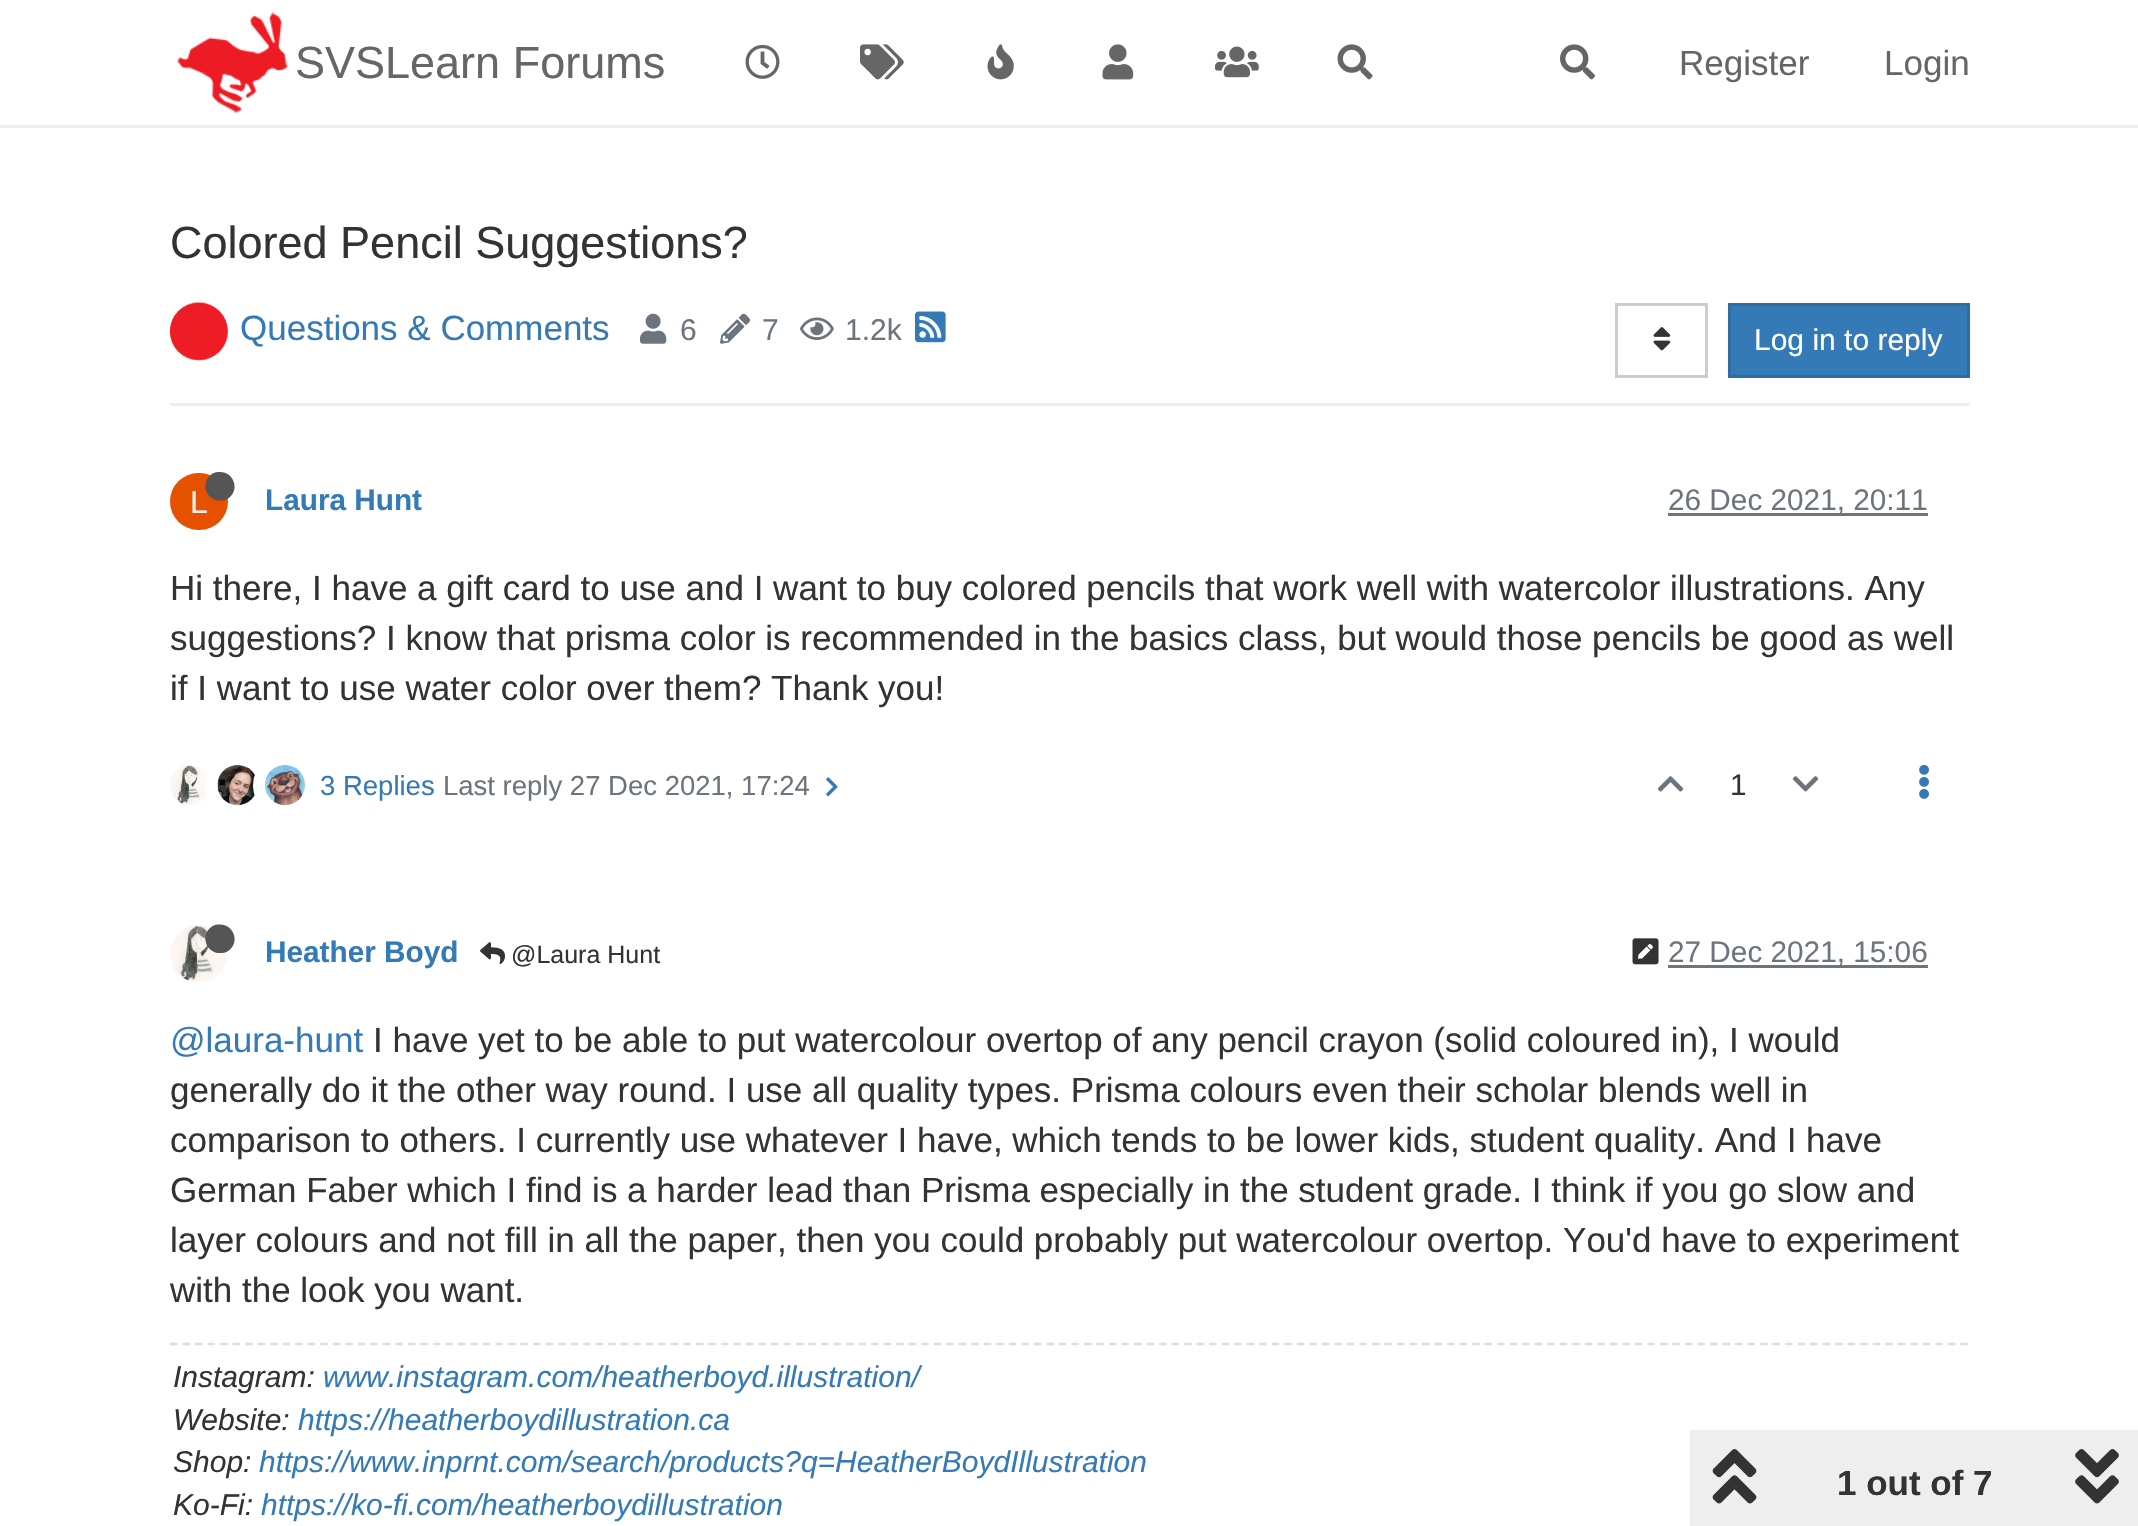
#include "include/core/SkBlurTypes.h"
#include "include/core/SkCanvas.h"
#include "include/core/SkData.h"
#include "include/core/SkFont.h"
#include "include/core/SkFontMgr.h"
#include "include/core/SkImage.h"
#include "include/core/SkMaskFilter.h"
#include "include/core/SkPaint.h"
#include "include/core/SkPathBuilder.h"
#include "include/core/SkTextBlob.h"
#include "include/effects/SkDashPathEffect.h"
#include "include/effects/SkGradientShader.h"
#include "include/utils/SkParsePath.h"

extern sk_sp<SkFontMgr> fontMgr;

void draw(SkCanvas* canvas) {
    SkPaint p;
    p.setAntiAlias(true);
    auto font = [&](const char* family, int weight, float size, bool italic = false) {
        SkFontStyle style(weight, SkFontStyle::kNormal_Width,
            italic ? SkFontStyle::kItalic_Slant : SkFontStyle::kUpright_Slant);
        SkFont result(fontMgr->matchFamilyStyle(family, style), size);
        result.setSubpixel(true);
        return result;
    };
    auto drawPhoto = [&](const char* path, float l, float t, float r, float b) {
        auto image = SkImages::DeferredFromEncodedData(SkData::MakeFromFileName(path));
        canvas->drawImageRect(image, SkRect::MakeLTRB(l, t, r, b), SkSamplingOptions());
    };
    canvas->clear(0xFFFFFFFF);
    p.setColor(0xFFEEEEEE);
    canvas->drawRect(SkRect::MakeLTRB(0, 125, 2138, 128), p);
    drawPhoto("media/1.png", 177, 12, 288, 113);
    auto font1 = font("Liberation Sans", 400, 45);
    p.setColor(0xFF666666);
    canvas->drawString("SVSLearn Forums", 295, 78, font1, p);
    drawPhoto("media/2.png", 745, 44, 780, 79);
    drawPhoto("media/3.png", 860, 44, 904, 80);
    drawPhoto("media/4.png", 987, 44, 1014, 80);
    drawPhoto("media/5.png", 1102, 44, 1134, 80);
    drawPhoto("media/6.png", 1215, 46, 1259, 78);
    drawPhoto("media/7.png", 1337, 44, 1373, 80);
    drawPhoto("media/8.png", 1560, 44, 1595, 80);
    auto font2 = font("Liberation Sans", 400, 35);
    canvas->drawString("Register", 1679, 75, font2, p);
    canvas->drawString("Login", 1884, 75, font2, p);
    p.setColor(0xFF333333);
    canvas->drawString("Colored Pencil Suggestions?", 170, 258, font1, p);
    p.setColor(0xFFEEEEEE);
    canvas->drawRect(SkRect::MakeLTRB(170, 403, 1970, 406), p);
    p.setColor(0xFFE95C5A);
    canvas->drawRoundRect(SkRect::MakeLTRB(170, 303, 228, 360), 28.5f, 28.5f, p);
    drawPhoto("media/9.png", 170, 302, 228, 361);
    p.setColor(0xFF337AB7);
    canvas->drawString("Questions & Comments", 240, 340, font2, p);
    drawPhoto("media/10.png", 640, 313, 667, 344);
    auto font3 = font("Liberation Sans", 400, 30);
    p.setColor(0xFF6C757D);
    canvas->drawString("6", 680, 340, font3, p);
    drawPhoto("media/11.png", 720, 313, 750, 344);
    canvas->drawString("7", 762, 340, font3, p);
    drawPhoto("media/12.png", 800, 317, 834, 340);
    canvas->drawString("1.2k", 845, 340, font3, p);
    drawPhoto("media/13.png", 915, 311, 946, 343);
    p.setStyle(SkPaint::kStroke_Style);
    p.setStrokeWidth(3);
    p.setColor(0xFFCCCCCC);
    canvas->drawRect(SkRect::MakeLTRB(1616.5f, 304.5f, 1706.5f, 376.5f), p);
    drawPhoto("media/14.png", 1653, 327, 1671, 351);
    p.setStyle(SkPaint::kFill_Style);
    p.setColor(0xFF337AB7);
    canvas->drawRect(SkRect::MakeLTRB(1729.5f, 304.5f, 1968.5f, 376.5f), p);
    p.setStyle(SkPaint::kStroke_Style);
    p.setColor(0xFF2E6DA4);
    canvas->drawRect(SkRect::MakeLTRB(1729.5f, 304.5f, 1968.5f, 376.5f), p);
    p.setStyle(SkPaint::kFill_Style);
    p.setColor(0xFFFFFFFF);
    canvas->drawString("Log in to reply", 1754, 350, font3, p);
    p.setColor(0xFFE65100);
    canvas->drawRoundRect(SkRect::MakeLTRB(170, 473, 228, 530), 28.5f, 28.5f, p);
    auto font4 = font("Liberation Sans", 400, 32);
    p.setColor(0xFFEEEEEE);
    canvas->drawString("L", 190, 513, font4, p);
    p.setColor(0xFF555555);
    canvas->drawPath(SkPathBuilder().moveTo(209.5f, 476).cubicTo(212, 473.5f, 215, 472, 218.5f, 472).cubicTo(232, 470.5f, 240, 487, 230.5f, 496.5f).cubicTo(228, 499, 225, 500.5f, 221.5f, 500.5f).cubicTo(208, 502, 200, 485.5f, 209.5f, 476).close().detach(), p);
    auto font5 = font("Liberation Sans", 700, 29.75f);
    p.setColor(0xFF337AB7);
    canvas->drawString("Laura Hunt", 265, 510, font5, p);
    p.setColor(0xFF6C757D);
    canvas->drawRect(SkRect::MakeLTRB(1668, 513, 1928, 516), p);
    auto font6 = font("Liberation Sans", 400, 29.75f);
    canvas->drawString("26 Dec 2021, 20:11", 1668, 510, font6, p);
    p.setColor(0xFF333333);
    {
        const struct { const char* s; float x, y; } items[] = {
            {"Hi there, I have a gift card to use and I want to buy colored pencils that work well with watercolor illustrations. Any", 170, 600},
            {"suggestions? I know that prisma color is recommended in the basics class, but would those pencils be good as well", 170, 650},
            {"if I want to use water color over them? Thank you!", 170, 700},
        };
        for (auto [s, x, y] : items) {
            canvas->drawString(s, x, y, font2, p);
        }
    }
    drawPhoto("media/15.png", 170, 765, 208, 805);
    p.setStyle(SkPaint::kStroke_Style);
    p.setStrokeWidth(13);
    p.setColor(0xFFFFFFFF);
    canvas->drawCircle(237.5f, 785.5f, 26, p);
    drawPhoto("media/16.png", 217, 765, 255, 805);
    canvas->drawCircle(285.5f, 785.5f, 26, p);
    drawPhoto("media/17.png", 265, 765, 305, 805);
    auto font7 = font("Liberation Sans", 400, 27.5f);
    p.setStyle(SkPaint::kFill_Style);
    p.setColor(0xFF337AB7);
    canvas->drawString("3 Replies", 320, 795, font7, p);
    p.setColor(0xFF6C757D);
    canvas->drawString("Last reply 27 Dec 2021, 17:24", 443, 795, font7, p);
    drawPhoto("media/18.png", 826, 777, 838, 797);
    drawPhoto("media/19.png", 1657, 776, 1684, 792);
    p.setColor(0xFF333333);
    canvas->drawString("1", 1730, 795, font6, p);
    drawPhoto("media/20.png", 1792, 776, 1819, 792);
    drawPhoto("media/21.png", 1919, 764, 1929, 799);
    drawPhoto("media/22.png", 170, 925, 227, 982);
    p.setColor(0xFF555555);
    canvas->drawPath(SkPathBuilder().moveTo(209.5f, 928.5f).cubicTo(212, 926, 215, 924.5f, 218.5f, 924.5f).cubicTo(232, 923, 240, 939.5f, 230.5f, 949).cubicTo(228, 951.5f, 225, 953, 221.5f, 953).cubicTo(208, 954.5f, 200, 938, 209.5f, 928.5f).close().detach(), p);
    p.setColor(0xFF337AB7);
    canvas->drawString("Heather Boyd", 265, 962, font5, p);
    drawPhoto("media/23.png", 480, 942, 505, 964);
    auto font8 = font("Liberation Sans", 400, 25);
    p.setColor(0xFF333333);
    canvas->drawString("@Laura Hunt", 511, 963, font8, p);
    drawPhoto("media/24.png", 1632, 938, 1659, 965);
    p.setColor(0xFF6C757D);
    canvas->drawRect(SkRect::MakeLTRB(1668, 965, 1928, 968), p);
    canvas->drawString("27 Dec 2021, 15:06", 1668, 962, font6, p);
    p.setColor(0xFF337AB7);
    canvas->drawString("@laura-hunt", 170, 1052, font2, p);
    p.setColor(0xFF333333);
    {
        const struct { const char* s; float x, y; } items[] = {
            {"I have yet to be able to put watercolour overtop of any pencil crayon (solid coloured in), I would", 373, 1052},
            {"generally do it the other way round. I use all quality types. Prisma colours even their scholar blends well in", 170, 1102},
            {"comparison to others. I currently use whatever I have, which tends to be lower kids, student quality. And I have", 170, 1152},
            {"German Faber which I find is a harder lead than Prisma especially in the student grade. I think if you go slow and", 170, 1202},
            {"layer colours and not fill in all the paper, then you could probably put watercolour overtop. You'd have to experiment", 170, 1252},
            {"with the look you want.", 170, 1302},
        };
        for (auto [s, x, y] : items) {
            canvas->drawString(s, x, y, font2, p);
        }
    }
    p.setStyle(SkPaint::kStroke_Style);
    p.setStrokeWidth(2.5f);
    p.setColor(0xFFDEDEDE);
    p.setPathEffect(SkDashPathEffect::Make({{7.5f, 5.02f}}, 0));
    canvas->drawPath(SkPathBuilder().moveTo(170, 1344).lineTo(1970, 1344).detach(), p);
    p.setPathEffect(nullptr);
    auto font9 = font("Liberation Sans", 400, 30, true);
    p.setStyle(SkPaint::kFill_Style);
    p.setColor(0xFF333333);
    canvas->drawString("Instagram:", 173, 1387, font9, p);
    p.setColor(0xFF337AB7);
    canvas->drawString("www.instagram.com/heatherboyd.illustration/", 323, 1387, font9, p);
    p.setColor(0xFF333333);
    canvas->drawString("Website:", 173, 1430, font9, p);
    p.setColor(0xFF337AB7);
    canvas->drawString("https://heatherboydillustration.ca", 298, 1430, font9, p);
    p.setColor(0xFF333333);
    canvas->drawString("Shop:", 173, 1472, font9, p);
    p.setColor(0xFF337AB7);
    canvas->drawString("https://www.inprnt.com/search/products?q=HeatherBoydIllustration", 259, 1472, font9, p);
    p.setColor(0xFF333333);
    canvas->drawString("Ko-Fi:", 173, 1515, font9, p);
    p.setColor(0xFF337AB7);
    canvas->drawString("https://ko-fi.com/heatherboydillustration", 261, 1515, font9, p);
    p.setColor(0xFFEEEEEE);
    canvas->drawRect(SkRect::MakeLTRB(1690, 1430, 2138, 1526), p);
    drawPhoto("media/25.png", 1712, 1449, 1757, 1504);
    auto font10 = font("Liberation Sans", 700, 35);
    p.setColor(0xFF333333);
    canvas->drawString("1 out of 7", 1837, 1495, font10, p);
    drawPhoto("media/26.png", 2075, 1449, 2119, 1504);
}
